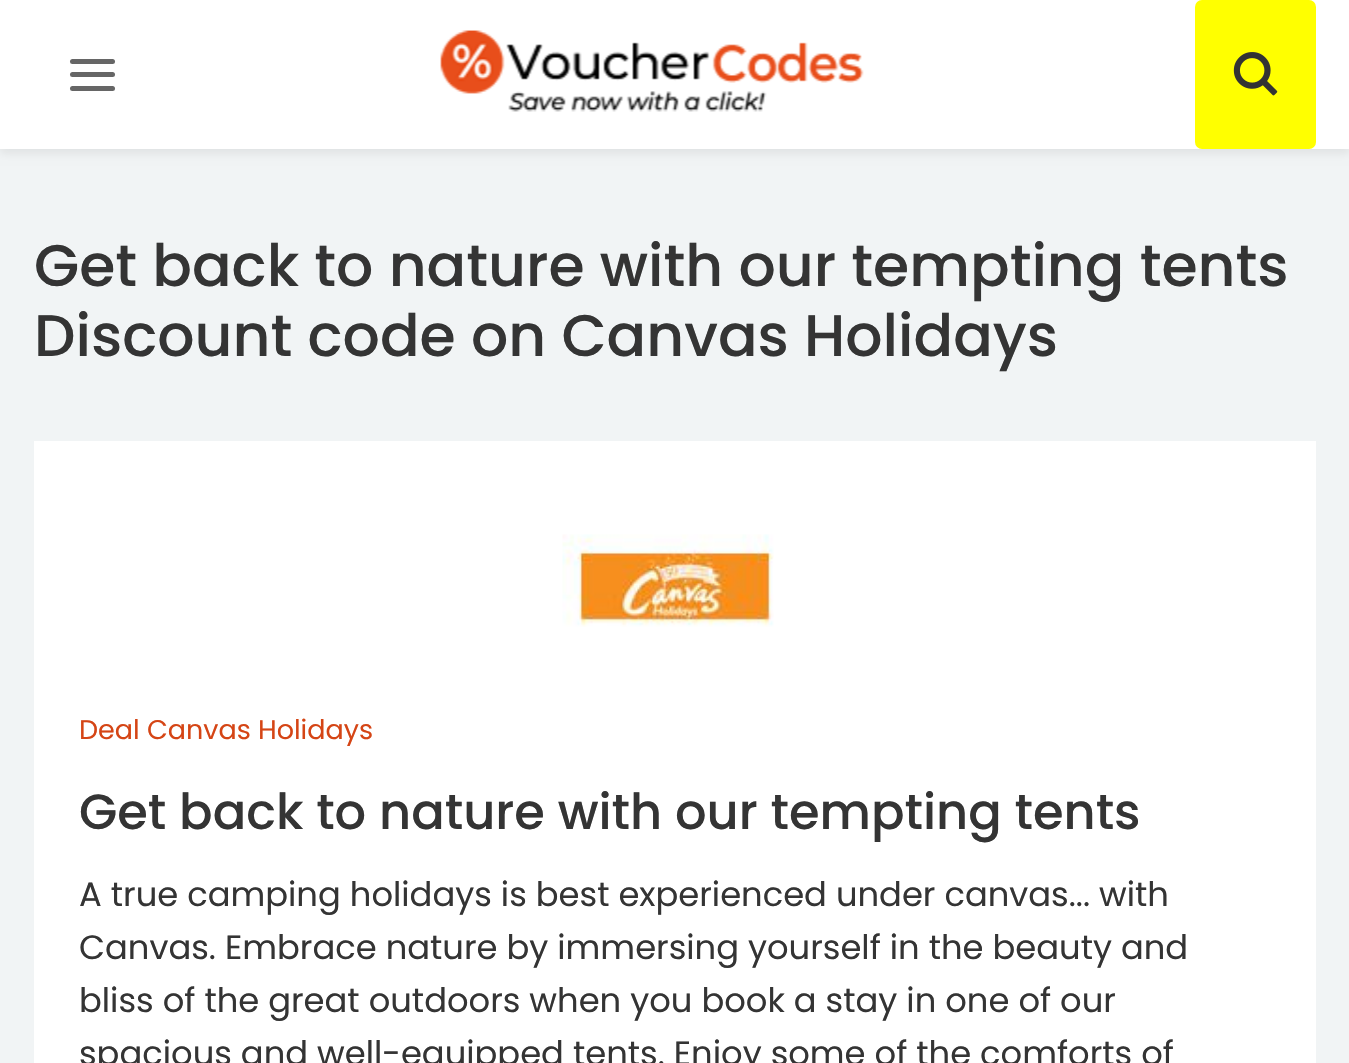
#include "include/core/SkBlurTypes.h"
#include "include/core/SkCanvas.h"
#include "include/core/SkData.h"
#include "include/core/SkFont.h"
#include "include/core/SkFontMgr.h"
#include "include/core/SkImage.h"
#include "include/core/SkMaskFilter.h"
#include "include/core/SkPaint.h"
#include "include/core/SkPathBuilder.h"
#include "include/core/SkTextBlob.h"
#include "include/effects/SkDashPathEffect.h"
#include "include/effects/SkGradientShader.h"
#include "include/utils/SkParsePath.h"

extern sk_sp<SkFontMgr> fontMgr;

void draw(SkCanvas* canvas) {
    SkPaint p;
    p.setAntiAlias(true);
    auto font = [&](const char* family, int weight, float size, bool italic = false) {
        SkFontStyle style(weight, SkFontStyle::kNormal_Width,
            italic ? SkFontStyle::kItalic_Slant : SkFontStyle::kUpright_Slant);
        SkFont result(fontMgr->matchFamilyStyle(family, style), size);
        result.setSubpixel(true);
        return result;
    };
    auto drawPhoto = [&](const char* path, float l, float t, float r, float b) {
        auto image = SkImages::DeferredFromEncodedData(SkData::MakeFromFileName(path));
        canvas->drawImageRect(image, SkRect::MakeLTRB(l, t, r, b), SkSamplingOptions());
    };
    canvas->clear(0xFFF1F4F5);
    p.setColor(0x14000000);
    p.setMaskFilter(SkMaskFilter::MakeBlur(kNormal_SkBlurStyle, 4.5f));
    canvas->drawRect(SkRect::MakeLTRB(0, 5, 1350, 153), p);
    p.setMaskFilter(nullptr);
    p.setColor(0xFFFFFFFF);
    canvas->drawRect(SkRect::MakeLTRB(0, 0, 1349, 149), p);
    p.setColor(0xFF666666);
    canvas->drawRoundRect(SkRect::MakeLTRB(70, 59, 115, 64), 2.5f, 2.5f, p);
    canvas->drawRoundRect(SkRect::MakeLTRB(70, 72, 115, 77), 2.5f, 2.5f, p);
    canvas->drawRoundRect(SkRect::MakeLTRB(70, 86, 115, 91), 2.5f, 2.5f, p);
    drawPhoto("media/1.png", 440, 30, 864, 112);
    p.setColor(0xFFFFFF00);
    canvas->drawRoundRect(SkRect::MakeLTRB(1195, 0, 1316, 149), 7, 7, p);
    drawPhoto("media/2.png", 1233, 52, 1278, 96);
    auto font1 = font("Poppins", 500, 58.5f);
    p.setColor(0xFF343434);
    canvas->drawString("Get back to nature with our tempting tents", 34, 286, font1, p);
    canvas->drawString("Discount code on Canvas Holidays", 34, 356, font1, p);
    p.setColor(0xFFFFFFFF);
    canvas->drawRect(SkRect::MakeLTRB(34, 441, 1316, 1063), p);
    drawPhoto("media/3.png", 562, 534, 774, 627);
    auto font2 = font("Poppins", 400, 27);
    p.setColor(0xFFD54515);
    canvas->drawString("Deal Canvas Holidays", 79, 739, font2, p);
    auto font3 = font("Poppins", 500, 49.5f);
    p.setColor(0xFF343434);
    canvas->drawString("Get back to nature with our tempting tents", 79, 829, font3, p);
    auto font4 = font("Poppins", 400, 33.75f);
    {
        const struct { const char* s; float x, y; } items[] = {
            {"A true camping holidays is best experienced under canvas... with", 79, 906},
            {"Canvas. Embrace nature by immersing yourself in the beauty and", 79, 959},
            {"bliss of the great outdoors when you book a stay in one of our", 79, 1012},
            {"spacious and well-equipped tents. Enjoy some of the comforts of", 79, 1065},
        };
        for (auto [s, x, y] : items) {
            canvas->drawString(s, x, y, font4, p);
        }
    }
}
